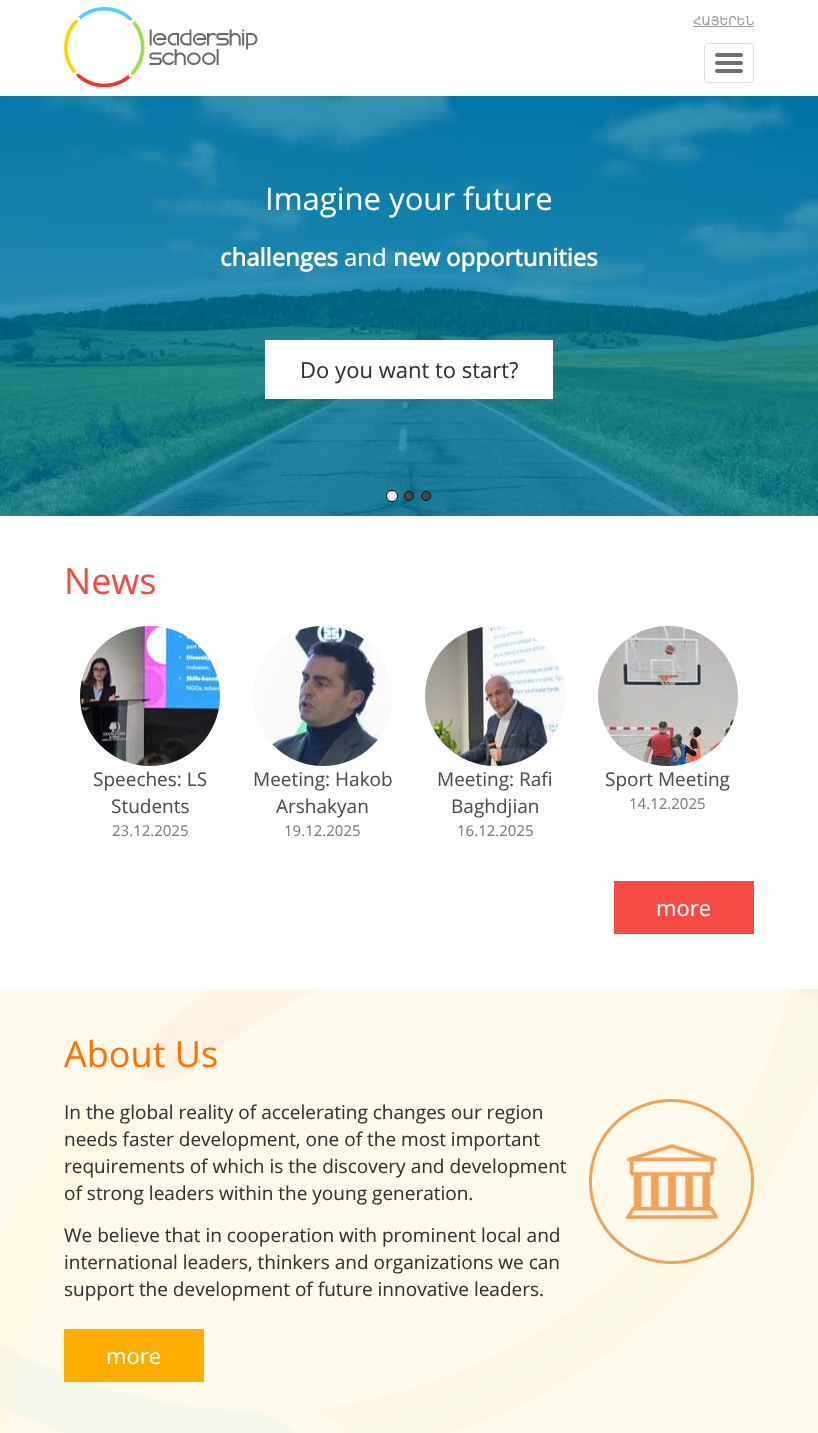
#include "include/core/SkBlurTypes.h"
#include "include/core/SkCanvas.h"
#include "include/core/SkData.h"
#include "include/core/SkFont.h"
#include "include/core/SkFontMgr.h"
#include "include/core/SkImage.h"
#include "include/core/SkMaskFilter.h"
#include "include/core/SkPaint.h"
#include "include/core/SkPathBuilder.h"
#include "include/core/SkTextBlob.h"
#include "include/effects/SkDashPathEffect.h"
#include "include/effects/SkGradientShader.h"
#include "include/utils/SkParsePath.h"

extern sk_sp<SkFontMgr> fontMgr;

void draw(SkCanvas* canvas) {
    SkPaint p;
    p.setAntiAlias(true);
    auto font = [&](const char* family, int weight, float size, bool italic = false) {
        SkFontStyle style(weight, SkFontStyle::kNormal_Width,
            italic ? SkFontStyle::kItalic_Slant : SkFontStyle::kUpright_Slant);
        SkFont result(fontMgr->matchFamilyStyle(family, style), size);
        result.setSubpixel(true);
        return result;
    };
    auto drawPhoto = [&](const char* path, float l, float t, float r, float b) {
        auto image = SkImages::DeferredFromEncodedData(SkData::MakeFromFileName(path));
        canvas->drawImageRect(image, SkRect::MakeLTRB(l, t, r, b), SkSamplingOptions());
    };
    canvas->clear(0xFFFFFFFF);
    drawPhoto("media/1.png", 64, 7, 258, 87);
    auto font1 = font("DejaVu Sans", 400, 12);
    p.setColor(0xFF9B9B9B);
    canvas->drawString("ՀԱՅԵՐԵՆ", 693, 25, font1, p);
    canvas->drawRect(SkRect::MakeLTRB(693, 26, 754, 27), p);
    p.setStyle(SkPaint::kStroke_Style);
    p.setStrokeWidth(1);
    p.setColor(0xFFDDDDDD);
    canvas->drawRoundRect(SkRect::MakeLTRB(704.5f, 43.5f, 753.5f, 82.5f), 3.5f, 3.5f, p);
    p.setStyle(SkPaint::kFill_Style);
    p.setColor(0xFF6E6F6F);
    canvas->drawRoundRect(SkRect::MakeLTRB(715, 53, 743, 57), 2, 2, p);
    canvas->drawRoundRect(SkRect::MakeLTRB(715, 61, 743, 65), 2, 2, p);
    canvas->drawRoundRect(SkRect::MakeLTRB(715, 69, 743, 73), 2, 2, p);
    drawPhoto("media/2.png", 0, 96, 818, 516);
    auto font2 = font("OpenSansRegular", 400, 31);
    p.setColor(0xFFFFFFFF);
    canvas->drawString("Imagine your future", 265, 210, font2, p);
    auto font3 = font("OpenSansRegular", 700, 24);
    canvas->drawString("challenges", 220, 266, font3, p);
    auto font4 = font("OpenSansRegular", 400, 24);
    canvas->drawString("and", 344, 266, font4, p);
    canvas->drawString("new opportunities", 393, 266, font3, p);
    canvas->drawRect(SkRect::MakeLTRB(265, 340, 553, 399), p);
    auto font5 = font("OpenSansRegular", 400, 22);
    p.setColor(0xFF333333);
    canvas->drawString("Do you want to start?", 300, 378, font5, p);
    p.setColor(0xFFFFFFFF);
    canvas->drawCircle(392, 496, 5.5f, p);
    p.setStyle(SkPaint::kStroke_Style);
    p.setColor(0xFF000000);
    canvas->drawCircle(392, 496, 5.5f, p);
    p.setStyle(SkPaint::kFill_Style);
    p.setColor(0xFF484747);
    canvas->drawCircle(409, 496, 4.5f, p);
    p.setStyle(SkPaint::kStroke_Style);
    p.setColor(0xFF000000);
    canvas->drawCircle(409, 496, 4.5f, p);
    p.setStyle(SkPaint::kFill_Style);
    p.setColor(0xFF484747);
    canvas->drawCircle(426, 496, 4.5f, p);
    p.setStyle(SkPaint::kStroke_Style);
    p.setColor(0xFF000000);
    canvas->drawCircle(426, 496, 4.5f, p);
    auto font6 = font("OpenSansRegular", 400, 36);
    p.setStyle(SkPaint::kFill_Style);
    p.setColor(0xFFF64A44);
    canvas->drawString("News", 64, 594, font6, p);
    drawPhoto("media/3.png", 80, 626, 220, 766);
    auto font7 = font("OpenSansRegular", 400, 19);
    p.setColor(0xFF4D4D4D);
    canvas->drawString("Speeches: LS", 93, 786, font7, p);
    canvas->drawString("Students", 111, 813, font7, p);
    auto font8 = font("OpenSansRegular", 400, 15);
    p.setColor(0xFF7D7D7D);
    canvas->drawString("23.12.2025", 112, 836, font8, p);
    drawPhoto("media/4.png", 253, 626, 393, 766);
    p.setColor(0xFF4D4D4D);
    canvas->drawString("Meeting: Hakob", 253, 786, font7, p);
    canvas->drawString("Arshakyan", 276, 813, font7, p);
    p.setColor(0xFF7D7D7D);
    canvas->drawString("19.12.2025", 284, 836, font8, p);
    drawPhoto("media/5.png", 425, 626, 565, 766);
    p.setColor(0xFF4D4D4D);
    canvas->drawString("Meeting: Rafi", 437, 786, font7, p);
    canvas->drawString("Baghdjian", 451, 813, font7, p);
    p.setColor(0xFF7D7D7D);
    canvas->drawString("16.12.2025", 457, 836, font8, p);
    drawPhoto("media/6.png", 598, 626, 738, 766);
    p.setColor(0xFF4D4D4D);
    canvas->drawString("Sport Meeting", 605, 786, font7, p);
    p.setColor(0xFF7D7D7D);
    canvas->drawString("14.12.2025", 629, 809, font8, p);
    p.setColor(0xFFF64A44);
    canvas->drawRect(SkRect::MakeLTRB(614, 881, 754, 934), p);
    p.setColor(0xFFFFFFFF);
    canvas->drawString("more", 656, 916, font5, p);
    p.setColor(0xFFFFF9EB);
    canvas->drawRect(SkRect::MakeLTRB(0, 989, 818, 1433), p);
    drawPhoto("media/7.png", 0, 989, 818, 1433);
    p.setColor(0xFFFF7200);
    canvas->drawString("About Us", 64, 1067, font6, p);
    p.setColor(0xFF333333);
    {
        const struct { const char* s; float x, y; } items[] = {
            {"In the global reality of accelerating changes our region", 64, 1119},
            {"needs faster development, one of the most important", 64, 1146},
            {"requirements of which is the discovery and development", 64, 1173},
            {"of strong leaders within the young generation.", 64, 1200},
        };
        for (auto [s, x, y] : items) {
            canvas->drawString(s, x, y, font7, p);
        }
    }
    drawPhoto("media/8.png", 589, 1099, 754, 1264);
    {
        const struct { const char* s; float x, y; } items[] = {
            {"We believe that in cooperation with prominent local and", 64, 1242},
            {"international leaders, thinkers and organizations we can", 64, 1269},
            {"support the development of future innovative leaders.", 64, 1296},
        };
        for (auto [s, x, y] : items) {
            canvas->drawString(s, x, y, font7, p);
        }
    }
    p.setColor(0xFFFFAE00);
    canvas->drawRect(SkRect::MakeLTRB(64, 1329, 204, 1382), p);
    p.setColor(0xFFFFFFFF);
    canvas->drawString("more", 106, 1364, font5, p);
}
